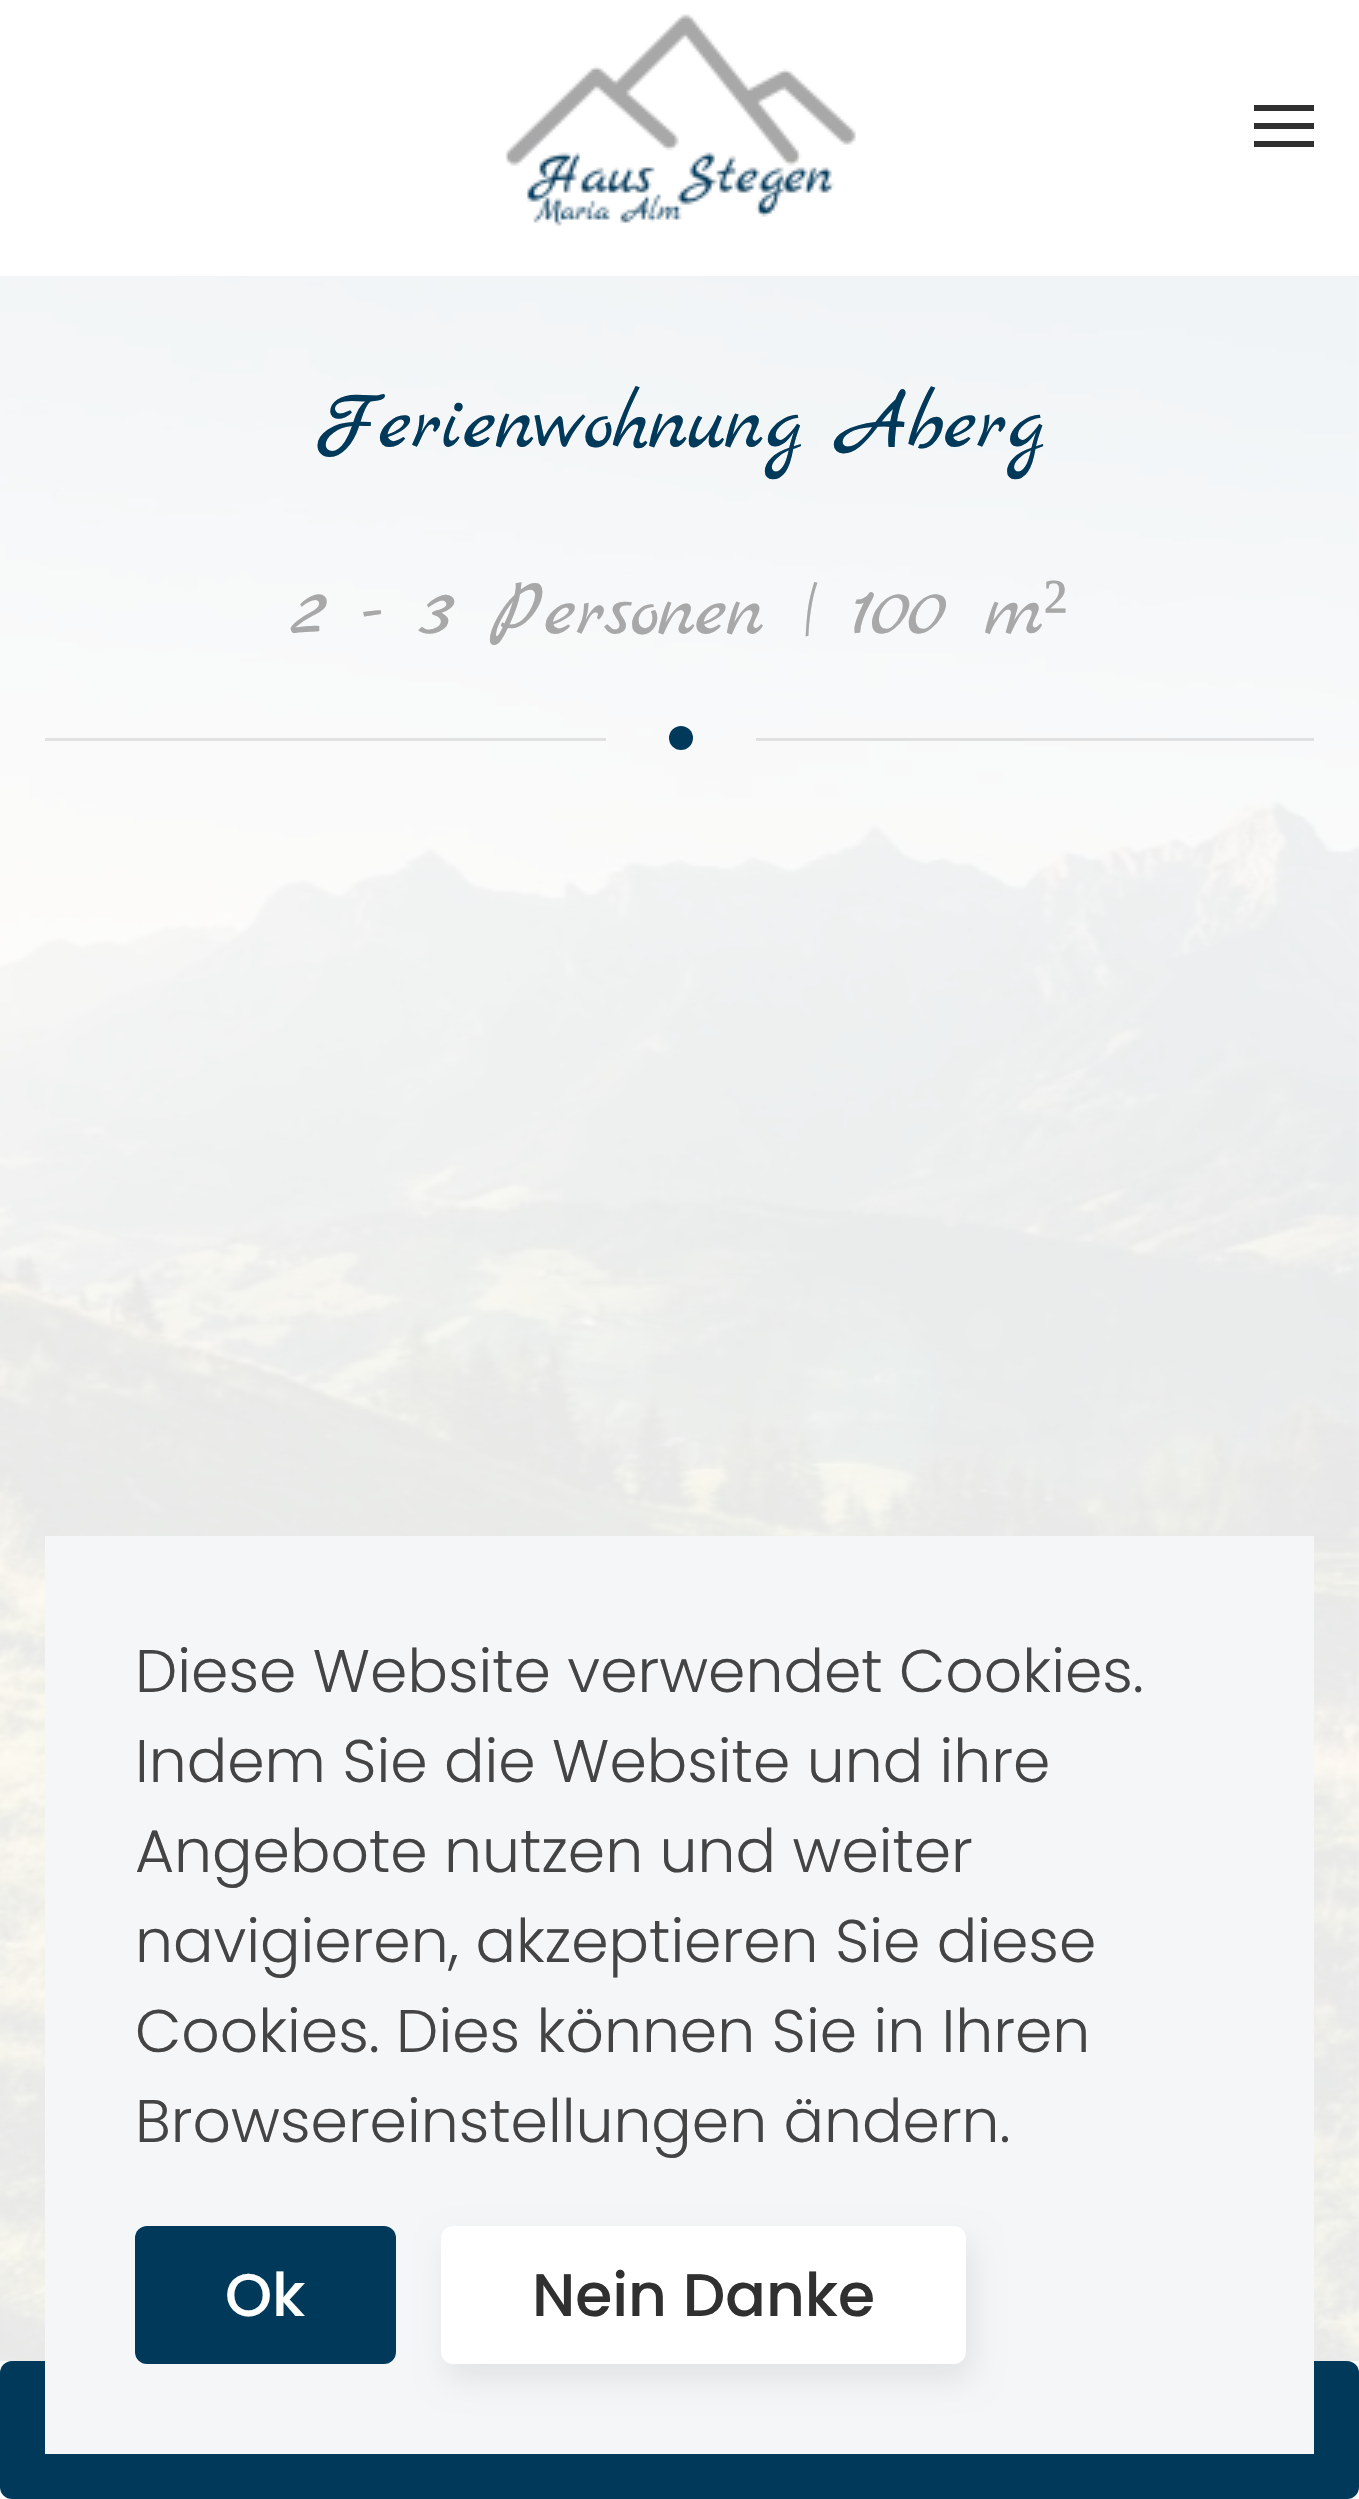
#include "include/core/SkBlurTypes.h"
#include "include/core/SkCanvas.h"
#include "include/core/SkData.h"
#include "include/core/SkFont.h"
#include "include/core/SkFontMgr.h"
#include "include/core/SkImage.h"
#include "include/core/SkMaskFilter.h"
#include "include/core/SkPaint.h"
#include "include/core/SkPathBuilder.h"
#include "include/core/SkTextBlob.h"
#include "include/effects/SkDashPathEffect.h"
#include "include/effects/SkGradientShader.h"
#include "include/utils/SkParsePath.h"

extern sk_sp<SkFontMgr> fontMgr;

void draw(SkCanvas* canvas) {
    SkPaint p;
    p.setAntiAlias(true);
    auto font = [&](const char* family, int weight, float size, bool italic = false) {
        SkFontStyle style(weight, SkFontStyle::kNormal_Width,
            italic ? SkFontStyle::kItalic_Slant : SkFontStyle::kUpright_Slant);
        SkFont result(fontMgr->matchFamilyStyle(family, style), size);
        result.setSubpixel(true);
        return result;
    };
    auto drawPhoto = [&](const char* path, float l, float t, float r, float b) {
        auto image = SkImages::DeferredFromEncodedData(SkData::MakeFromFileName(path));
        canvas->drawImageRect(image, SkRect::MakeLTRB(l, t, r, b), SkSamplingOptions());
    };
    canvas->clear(0xFFFFFFFF);
    drawPhoto("media/1.png", 505, 14, 856, 226);
    {
        const struct { float l, t, r, b; SkColor color; } items[] = {
            {1254, 105, 1314, 111, 0xFF303030},
            {1254, 123, 1314, 129, 0xFF303030},
            {1254, 141, 1314, 147, 0xFF303030},
        };
        for (auto [l, t, r, b, color] : items) {
            p.setColor(color);
            canvas->drawRect(SkRect::MakeLTRB(l, t, r, b), p);
        }
    }
    drawPhoto("media/2.png", 0, 276, 1359, 2361);
    auto font1 = font("Marck Script", 400, 84);
    p.setColor(0xFF003959);
    canvas->drawString("Ferienwohnung Aberg", 315, 447, font1, p);
    auto font2 = font("Marck Script", 400, 81);
    p.setColor(0xFFA8A8A8);
    canvas->drawString("2 - 3 Personen | 100 m", 292, 634, font2, p);
    auto font3 = font("Liberation Serif", 400, 81);
    canvas->drawString("²", 1043, 634, font3, p);
    p.setColor(0xFF003959);
    canvas->drawCircle(681, 738, 12, p);
    p.setColor(0xFFE1E1E1);
    canvas->drawRect(SkRect::MakeLTRB(45, 738, 606, 741), p);
    p.setColor(0xFFE0E0E1);
    canvas->drawRect(SkRect::MakeLTRB(756, 738, 1314, 741), p);
    p.setColor(0xFF003959);
    canvas->drawRoundRect(SkRect::MakeLTRB(0, 2361, 1359, 2499), 12, 12, p);
    p.setColor(0xFFF4F6F8);
    canvas->drawRect(SkRect::MakeLTRB(45, 1536, 1314, 2454), p);
    auto font4 = font("Poppins", 300, 60);
    p.setColor(0xFF444444);
    {
        const struct { const char* s; float x, y; } items[] = {
            {"Diese Website verwendet Cookies.", 135, 1692},
            {"Indem Sie die Website und ihre", 135, 1782},
            {"Angebote nutzen und weiter", 135, 1872},
            {"navigieren, akzeptieren Sie diese", 135, 1962},
            {"Cookies. Dies können Sie in Ihren", 135, 2052},
            {"Browsereinstellungen ändern.", 135, 2142},
        };
        for (auto [s, x, y] : items) {
            canvas->drawString(s, x, y, font4, p);
        }
    }
    p.setColor(0xFF003959);
    canvas->drawRoundRect(SkRect::MakeLTRB(135, 2226, 396, 2364), 12, 12, p);
    auto font5 = font("Poppins", 500, 60);
    p.setColor(0xFFFFFFFF);
    canvas->drawString("Ok", 225, 2316, font5, p);
    p.setColor(0x14000000);
    p.setMaskFilter(SkMaskFilter::MakeBlur(kNormal_SkBlurStyle, 15));
    canvas->drawRoundRect(SkRect::MakeLTRB(447, 2241, 972, 2379), 12, 12, p);
    p.setMaskFilter(nullptr);
    p.setColor(0xFFFFFFFF);
    canvas->drawRoundRect(SkRect::MakeLTRB(441, 2226, 966, 2364), 12, 12, p);
    p.setColor(0xFF303030);
    canvas->drawString("Nein Danke", 532, 2316, font5, p);
}
